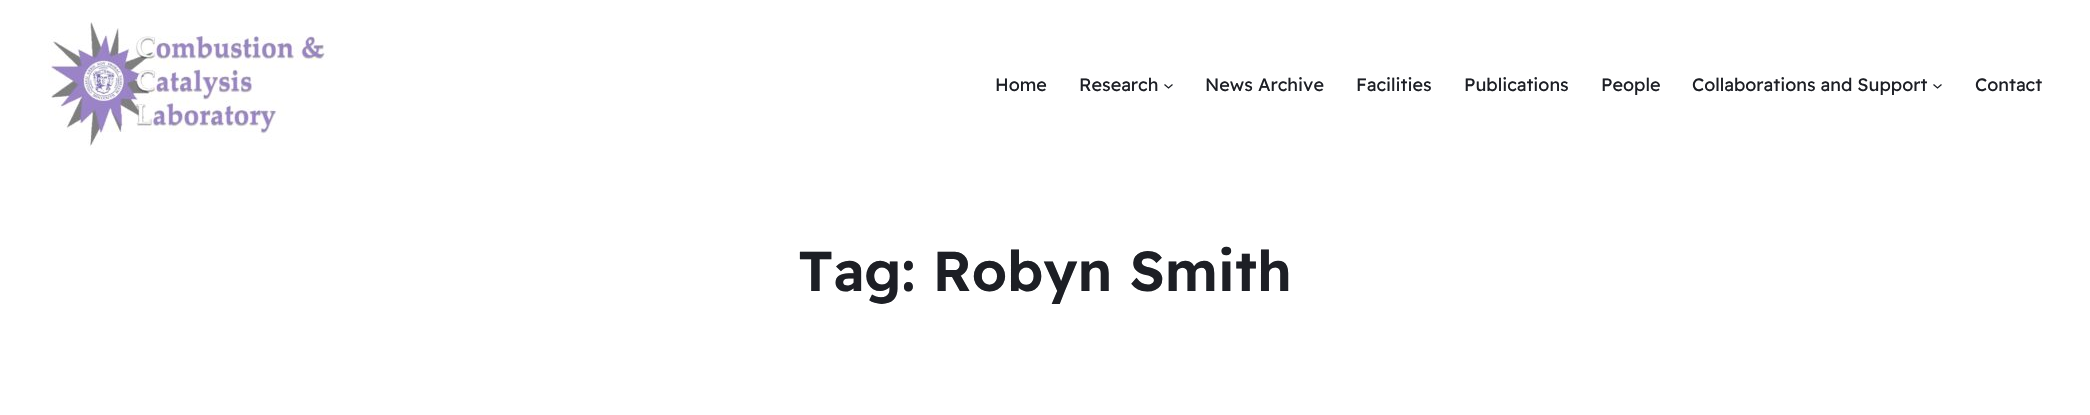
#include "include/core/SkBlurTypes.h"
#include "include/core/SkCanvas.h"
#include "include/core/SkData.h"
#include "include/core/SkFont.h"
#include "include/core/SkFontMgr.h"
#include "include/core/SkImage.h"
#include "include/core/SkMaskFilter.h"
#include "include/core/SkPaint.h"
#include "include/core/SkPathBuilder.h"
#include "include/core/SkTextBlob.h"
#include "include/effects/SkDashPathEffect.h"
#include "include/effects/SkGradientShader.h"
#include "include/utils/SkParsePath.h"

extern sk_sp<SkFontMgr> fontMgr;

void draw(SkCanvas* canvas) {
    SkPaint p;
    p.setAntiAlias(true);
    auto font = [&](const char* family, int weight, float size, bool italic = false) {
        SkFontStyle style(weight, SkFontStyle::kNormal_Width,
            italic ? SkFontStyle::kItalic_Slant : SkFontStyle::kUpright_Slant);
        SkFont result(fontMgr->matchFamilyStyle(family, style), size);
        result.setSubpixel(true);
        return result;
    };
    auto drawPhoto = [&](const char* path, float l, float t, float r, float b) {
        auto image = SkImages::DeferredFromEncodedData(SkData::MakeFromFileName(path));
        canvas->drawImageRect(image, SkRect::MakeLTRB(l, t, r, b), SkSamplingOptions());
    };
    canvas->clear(0xFFFFFFFF);
    drawPhoto("media/1.png", 48, 22, 328, 148);
    auto font1 = font("Readex Pro", 400, 18);
    p.setColor(0xFF1D1F25);
    canvas->drawString("Home", 995, 91, font1, p);
    canvas->drawString("Research", 1079, 91, font1, p);
    p.setStyle(SkPaint::kStroke_Style);
    p.setStrokeWidth(1.3f);
    canvas->drawPath(SkPathBuilder().moveTo(1164.5f, 84.5f).lineTo(1168.5f, 88).lineTo(1172.5f, 84.5f).detach(), p);
    p.setStyle(SkPaint::kFill_Style);
    {
        const struct { const char* s; float x, y; } items[] = {
            {"News Archive", 1205, 91},
            {"Facilities", 1356, 91},
            {"Publications", 1464, 91},
            {"People", 1601, 91},
            {"Collaborations and Support", 1692, 91},
        };
        for (auto [s, x, y] : items) {
            canvas->drawString(s, x, y, font1, p);
        }
    }
    p.setStyle(SkPaint::kStroke_Style);
    canvas->drawPath(SkPathBuilder().moveTo(1933.5f, 84.5f).lineTo(1937.5f, 88).lineTo(1941.5f, 84.5f).detach(), p);
    p.setStyle(SkPaint::kFill_Style);
    canvas->drawString("Contact", 1975, 91, font1, p);
    auto font2 = font("Readex Pro", 600, 56);
    canvas->drawString("Tag: Robyn Smith", 798, 291, font2, p);
}
